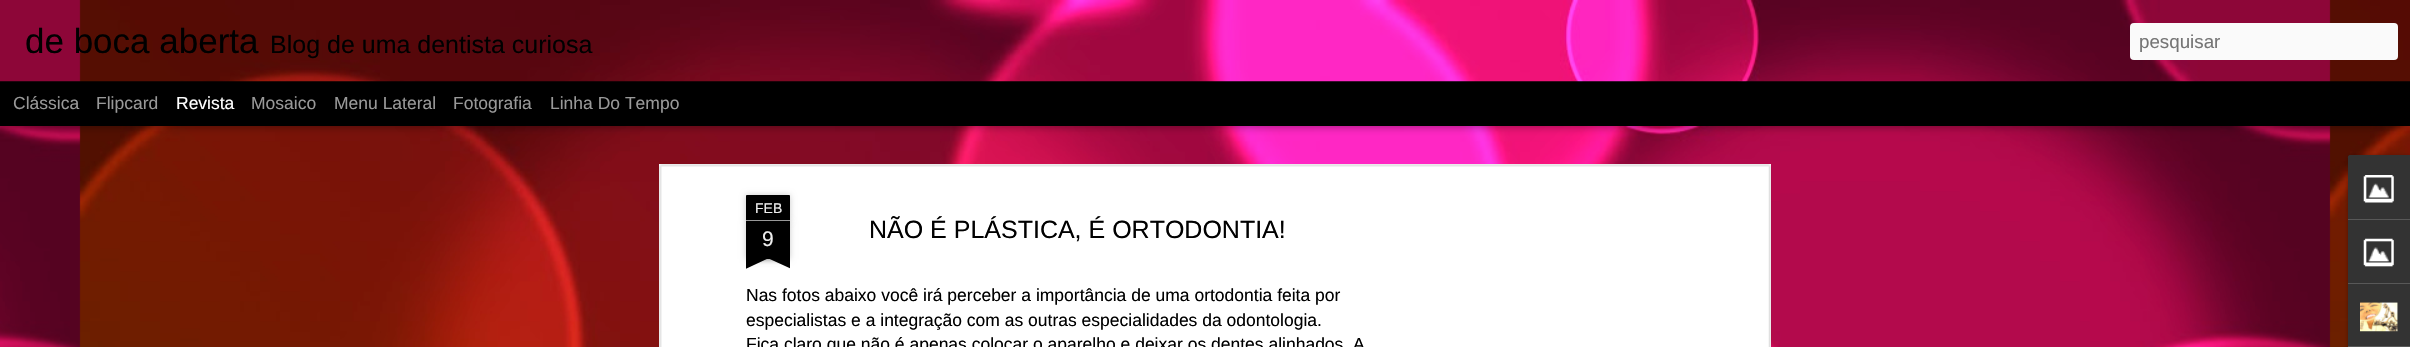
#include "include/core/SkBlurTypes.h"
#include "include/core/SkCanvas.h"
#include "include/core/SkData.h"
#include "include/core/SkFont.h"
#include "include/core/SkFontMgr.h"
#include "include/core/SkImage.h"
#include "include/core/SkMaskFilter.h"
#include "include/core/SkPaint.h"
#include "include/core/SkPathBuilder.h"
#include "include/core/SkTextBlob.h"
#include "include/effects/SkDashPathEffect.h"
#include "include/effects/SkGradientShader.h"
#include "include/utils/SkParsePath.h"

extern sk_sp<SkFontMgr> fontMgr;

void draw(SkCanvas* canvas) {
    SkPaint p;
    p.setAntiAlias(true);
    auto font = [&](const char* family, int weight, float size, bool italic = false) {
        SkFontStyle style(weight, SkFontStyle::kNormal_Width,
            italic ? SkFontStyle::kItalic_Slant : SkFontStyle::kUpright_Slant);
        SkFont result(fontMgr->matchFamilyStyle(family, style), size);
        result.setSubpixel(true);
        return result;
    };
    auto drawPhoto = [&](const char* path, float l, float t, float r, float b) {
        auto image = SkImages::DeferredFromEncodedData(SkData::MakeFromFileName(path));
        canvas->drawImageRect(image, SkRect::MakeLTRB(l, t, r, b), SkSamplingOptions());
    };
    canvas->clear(0xFF000000);
    drawPhoto("media/2.png", 0, 126, 2410, 347);
    p.setColor(0x80000000);
    p.setMaskFilter(SkMaskFilter::MakeBlur(kNormal_SkBlurStyle, 5));
    canvas->drawRect(SkRect::MakeLTRB(0, 81, 2410, 125), p);
    p.setMaskFilter(nullptr);
    drawPhoto("media/1.png", 0, 0, 2410, 82);
    auto font1 = font("Liberation Sans", 400, 35);
    p.setColor(0xFF000000);
    canvas->drawString("de boca aberta", 25, 53, font1, p);
    auto font2 = font("Liberation Sans", 400, 25);
    canvas->drawString("Blog de uma dentista curiosa", 270, 53, font2, p);
    p.setColor(0xFFFAFAFA);
    canvas->drawRoundRect(SkRect::MakeLTRB(2130, 23, 2398, 60), 4, 4, p);
    auto font3 = font("Liberation Sans", 400, 18.75f);
    p.setColor(0xFF757575);
    canvas->drawString("pesquisar", 2139, 48, font3, p);
    auto font4 = font("Liberation Sans", 400, 17.5f);
    p.setColor(0xFF999999);
    canvas->drawString("Clássica", 13, 109, font4, p);
    canvas->drawString("Flipcard", 96, 109, font4, p);
    p.setColor(0xFFFFFFFF);
    canvas->drawString("Revista", 176, 109, font4, p);
    p.setColor(0xFF999999);
    {
        const struct { const char* s; float x, y; } items[] = {
            {"Mosaico", 251, 109},
            {"Menu Lateral", 334, 109},
            {"Fotografia", 453, 109},
            {"Linha Do Tempo", 550, 109},
        };
        for (auto [s, x, y] : items) {
            canvas->drawString(s, x, y, font4, p);
        }
    }
    p.setColor(0xFFFFFFFF);
    canvas->drawRect(SkRect::MakeLTRB(659, 164, 1771, 347), p);
    drawPhoto("media/3.png", 659, 164, 1772, 347);
    p.setColor(0x33000000);
    p.setMaskFilter(SkMaskFilter::MakeBlur(kNormal_SkBlurStyle, 3));
    canvas->drawRect(SkRect::MakeLTRB(746, 221, 790, 259), p);
    p.setMaskFilter(nullptr);
    p.setColor(0xFF000000);
    canvas->drawRect(SkRect::MakeLTRB(746, 221, 790, 259), p);
    p.setColor(0x33000000);
    p.setMaskFilter(SkMaskFilter::MakeBlur(kNormal_SkBlurStyle, 3));
    canvas->drawRoundRect(SkRect::MakeLTRB(746, 195, 790, 221), 1, 1, p);
    p.setMaskFilter(nullptr);
    p.setColor(0xFF000000);
    canvas->drawPath(SkPathBuilder().moveTo(747, 195).lineTo(789, 195).cubicTo(789.5f, 195, 790, 195.5f, 790, 196).lineTo(790, 221).lineTo(746, 221).lineTo(746, 196).cubicTo(746, 195.5f, 746.5f, 195, 747, 195).close().detach(), p);
    p.setColor(0xFF999999);
    canvas->drawRect(SkRect::MakeLTRB(746, 220, 790, 221), p);
    auto font5 = font("Liberation Sans", 400, 14);
    p.setColor(0xFFEEEEEE);
    canvas->drawString("FEB", 755, 213, font5, p);
    auto font6 = font("Liberation Sans", 400, 21);
    canvas->drawString("9", 762, 246, font6, p);
    canvas->save();
    canvas->clipRect(SkRect::MakeLTRB(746, 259, 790, 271));
    p.setColor(0x33000000);
    p.setMaskFilter(SkMaskFilter::MakeBlur(kNormal_SkBlurStyle, 3));
    canvas->drawRect(SkRect::MakeLTRB(735, 246, 798, 259), p);
    p.setMaskFilter(nullptr);
    canvas->restore();
    canvas->save();
    canvas->clipRect(SkRect::MakeLTRB(746, 259, 790, 271));
    p.setColor(0xFF000000);
    canvas->drawPath(SkPathBuilder().moveTo(735, 260).lineTo(792, 234).lineTo(797, 245).lineTo(741, 271).close().detach(), p);
    canvas->restore();
    canvas->save();
    canvas->clipRect(SkRect::MakeLTRB(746, 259, 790, 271));
    p.setColor(0x33000000);
    p.setMaskFilter(SkMaskFilter::MakeBlur(kNormal_SkBlurStyle, 3));
    canvas->drawRect(SkRect::MakeLTRB(739, 246, 801, 259), p);
    p.setMaskFilter(nullptr);
    canvas->restore();
    canvas->save();
    canvas->clipRect(SkRect::MakeLTRB(746, 259, 790, 271));
    p.setColor(0xFF000000);
    canvas->drawPath(SkPathBuilder().moveTo(744, 234).lineTo(801, 260).lineTo(796, 271).lineTo(739, 245).close().detach(), p);
    canvas->restore();
    canvas->drawString("NÃO É PLÁSTICA, É ORTODONTIA!", 869, 238, font2, p);
    {
        const struct { const char* s; float x, y; } items[] = {
            {"Nas fotos abaixo você irá perceber a importância de uma ortodontia feita por", 746, 301},
            {"especialistas e a integração com as outras especialidades da odontologia.", 746, 326},
            {"Fica claro que não é apenas colocar o aparelho e deixar os dentes alinhados. A", 746, 350},
        };
        for (auto [s, x, y] : items) {
            canvas->drawString(s, x, y, font4, p);
        }
    }
    p.setColor(0x4D000000);
    p.setMaskFilter(SkMaskFilter::MakeBlur(kNormal_SkBlurStyle, 2));
    canvas->drawRoundRect(SkRect::MakeLTRB(2348, 156, 2410, 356), 2.5f, 2.5f, p);
    p.setMaskFilter(nullptr);
    p.setColor(0xFF333333);
    canvas->drawPath(SkPathBuilder().moveTo(2350.5f, 155).lineTo(2410, 155).lineTo(2410, 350).lineTo(2350.5f, 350).cubicTo(2349, 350, 2348, 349, 2348, 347.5f).lineTo(2348, 157.5f).cubicTo(2348, 156, 2349, 155, 2350.5f, 155).close().detach(), p);
    canvas->drawPath(SkPathBuilder().moveTo(2350.5f, 155).lineTo(2410, 155).lineTo(2410, 219).lineTo(2348, 219).lineTo(2348, 157.5f).cubicTo(2348, 156, 2349, 155, 2350.5f, 155).close().detach(), p);
    drawPhoto("media/4.png", 2363, 175, 2394, 203);
    p.setColor(0xFF585858);
    canvas->drawRect(SkRect::MakeLTRB(2348, 219, 2410, 220), p);
    drawPhoto("media/5.png", 2363, 238, 2394, 267);
    canvas->drawRect(SkRect::MakeLTRB(2348, 283, 2410, 284), p);
    drawPhoto("media/6.png", 2360, 302, 2398, 332);
    canvas->drawRect(SkRect::MakeLTRB(2348, 346, 2410, 347), p);
}
